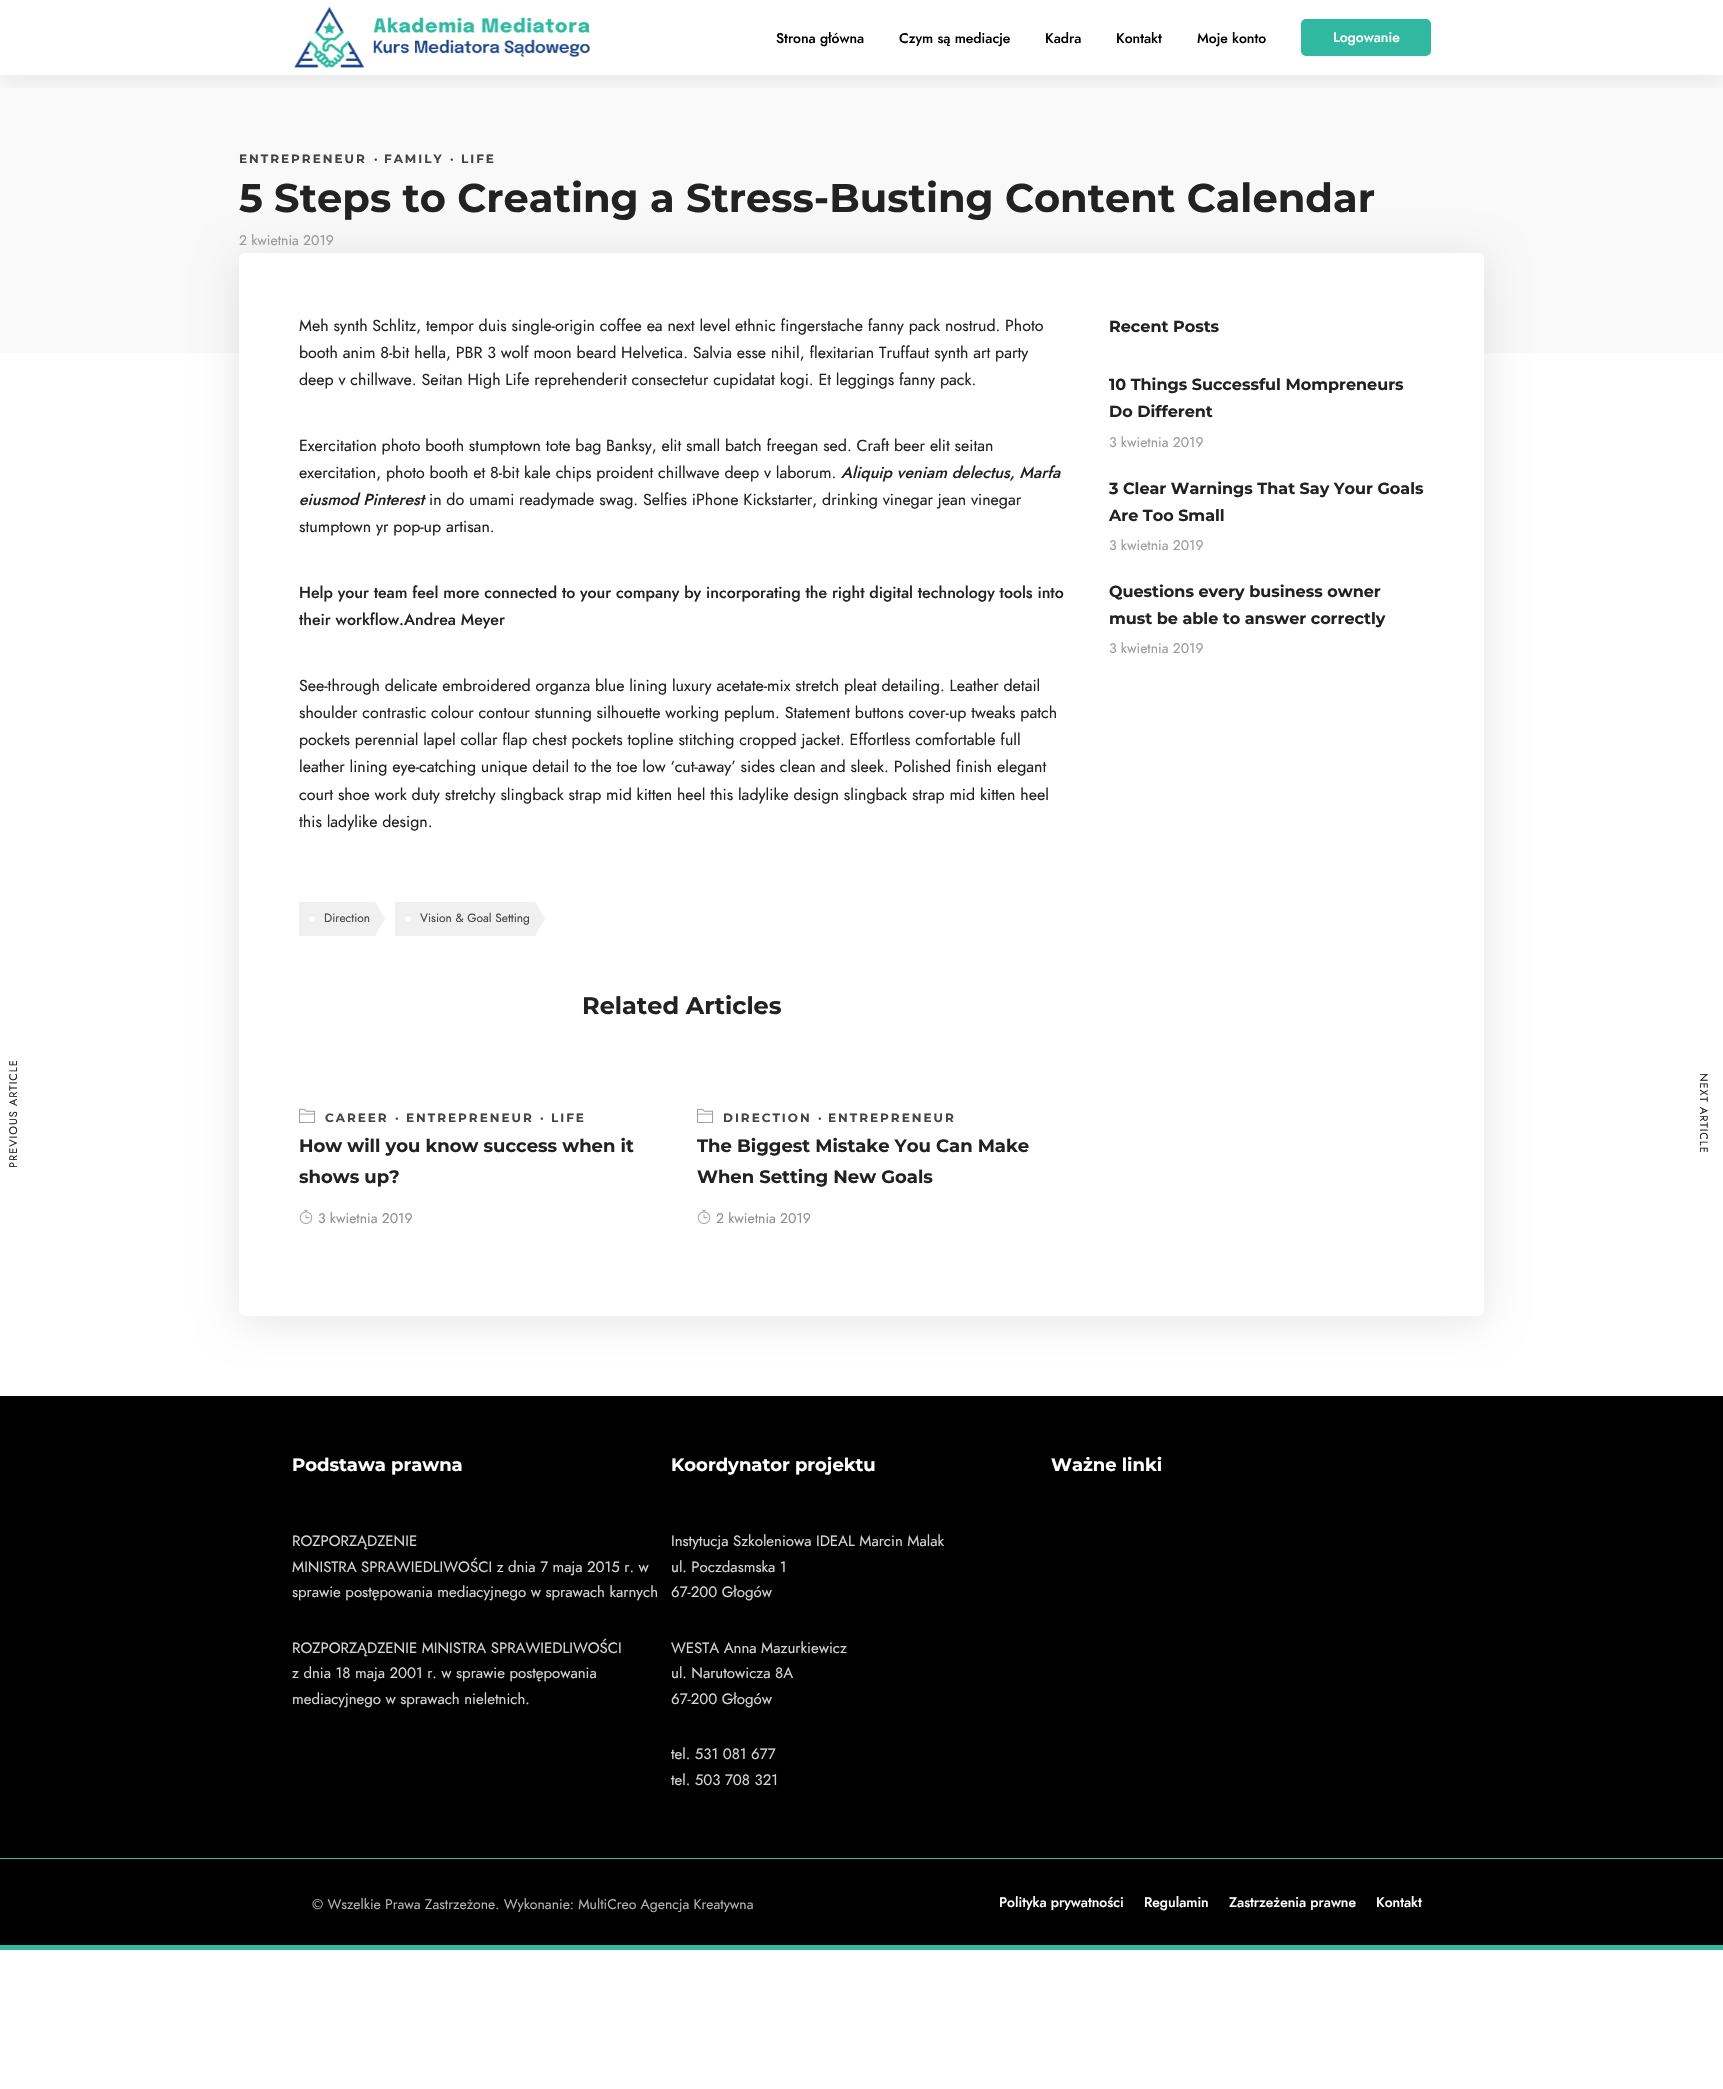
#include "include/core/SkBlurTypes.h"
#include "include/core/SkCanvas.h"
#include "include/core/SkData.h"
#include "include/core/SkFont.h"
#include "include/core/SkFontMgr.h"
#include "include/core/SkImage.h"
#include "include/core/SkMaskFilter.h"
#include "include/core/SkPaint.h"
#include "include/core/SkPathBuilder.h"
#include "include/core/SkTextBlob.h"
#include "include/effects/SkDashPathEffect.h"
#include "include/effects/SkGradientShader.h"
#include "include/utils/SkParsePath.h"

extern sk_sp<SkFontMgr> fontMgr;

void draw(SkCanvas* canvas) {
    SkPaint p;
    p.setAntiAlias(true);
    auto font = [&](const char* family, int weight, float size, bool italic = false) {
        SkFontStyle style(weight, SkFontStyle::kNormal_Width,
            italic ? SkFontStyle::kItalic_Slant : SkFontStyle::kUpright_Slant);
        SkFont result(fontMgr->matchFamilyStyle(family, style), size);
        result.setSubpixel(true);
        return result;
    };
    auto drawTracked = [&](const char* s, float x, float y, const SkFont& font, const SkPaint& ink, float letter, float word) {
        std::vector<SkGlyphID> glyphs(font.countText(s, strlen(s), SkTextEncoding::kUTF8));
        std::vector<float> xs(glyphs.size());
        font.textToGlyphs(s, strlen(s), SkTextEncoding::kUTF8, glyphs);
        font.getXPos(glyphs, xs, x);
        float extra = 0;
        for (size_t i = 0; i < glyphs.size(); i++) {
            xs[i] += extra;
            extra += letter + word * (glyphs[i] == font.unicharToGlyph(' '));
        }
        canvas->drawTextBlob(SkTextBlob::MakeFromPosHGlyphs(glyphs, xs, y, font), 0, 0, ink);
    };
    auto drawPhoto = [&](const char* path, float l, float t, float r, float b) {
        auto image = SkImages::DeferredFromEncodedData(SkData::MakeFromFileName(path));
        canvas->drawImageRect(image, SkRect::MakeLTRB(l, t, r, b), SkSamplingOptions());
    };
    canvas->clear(0xFFFFFFFF);
    p.setColor(0xFFF9F9F9);
    canvas->drawRect(SkRect::MakeLTRB(0, 75, 1723, 353), p);
    canvas->save();
    canvas->clipRect(SkRect::MakeLTRB(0, 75, 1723, 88));
    p.setColor(0x0D000000);
    p.setMaskFilter(SkMaskFilter::MakeBlur(kNormal_SkBlurStyle, 10));
    canvas->drawRect(SkRect::MakeLTRB(0, 10, 1723, 85), p);
    p.setMaskFilter(nullptr);
    canvas->restore();
    drawPhoto("media/1.png", 294, 6, 590, 68);
    auto font1 = font("Jost", 500, 14);
    p.setColor(0xFF000000);
    {
        const struct { const char* s; float x, y; } items[] = {
            {"Strona główna", 776, 43},
            {"Czym są mediacje", 899, 43},
            {"Kadra", 1045, 43},
            {"Kontakt", 1116, 43},
            {"Moje konto", 1197, 43},
        };
        for (auto [s, x, y] : items) {
            canvas->drawString(s, x, y, font1, p);
        }
    }
    p.setColor(0xFF30B8A0);
    canvas->drawRoundRect(SkRect::MakeLTRB(1302, 20, 1430, 55), 4, 4, p);
    p.setStyle(SkPaint::kStroke_Style);
    p.setStrokeWidth(2);
    canvas->drawRoundRect(SkRect::MakeLTRB(1302, 20, 1430, 55), 4, 4, p);
    p.setStyle(SkPaint::kFill_Style);
    p.setColor(0xFFFFFFFF);
    canvas->drawString("Logowanie", 1333, 42, font1, p);
    auto font2 = font("Montserrat", 100, 12);
    p.setColor(0xFF444444);
    drawTracked("ENTREPRENEUR", 239, 163, font2, p, 2, 0);
    canvas->drawString("·", 374, 163, font2, p);
    drawTracked("FAMILY", 384, 163, font2, p, 2, 0);
    canvas->drawString("·", 450, 163, font2, p);
    drawTracked("LIFE", 461, 163, font2, p, 2, 0);
    auto font3 = font("Montserrat", 100, 40);
    p.setColor(0xFF222222);
    canvas->drawString("5 Steps to Creating a Stress-Busting Content Calendar", 239, 212, font3, p);
    auto font4 = font("Jost", 400, 14);
    p.setColor(0xFF9B9B9B);
    canvas->drawString("2 kwietnia 2019", 239, 245, font4, p);
    p.setColor(0x1A000000);
    p.setMaskFilter(SkMaskFilter::MakeBlur(kNormal_SkBlurStyle, 20));
    canvas->drawRoundRect(SkRect::MakeLTRB(239, 258, 1484, 1321), 5, 5, p);
    p.setMaskFilter(nullptr);
    p.setColor(0xFFFFFFFF);
    canvas->drawRoundRect(SkRect::MakeLTRB(239, 253, 1484, 1316), 5, 5, p);
    auto font5 = font("Jost", 400, 11);
    p.setColor(0xFF222222);
    canvas->save();
    canvas->rotate(-90, 17, 1168);
    drawTracked("PREVIOUS ARTICLE", 17, 1168, font5, p, 1, 0);
    canvas->restore();
    auto font6 = font("Jost", 400, 16);
    {
        const struct { const char* s; float x, y; } items[] = {
            {"Meh synth Schlitz, tempor duis single-origin coffee ea next level ethnic fingerstache fanny pack nostrud. Photo", 299, 331},
            {"booth anim 8-bit hella, PBR 3 wolf moon beard Helvetica. Salvia esse nihil, flexitarian Truffaut synth art party", 299, 358},
            {"deep v chillwave. Seitan High Life reprehenderit consectetur cupidatat kogi. Et leggings fanny pack.", 299, 385},
            {"Exercitation photo booth stumptown tote bag Banksy, elit small batch freegan sed. Craft beer elit seitan", 299, 451},
            {"exercitation, photo booth et 8-bit kale chips proident chillwave deep v laborum.", 299, 478},
        };
        for (auto [s, x, y] : items) {
            canvas->drawString(s, x, y, font6, p);
        }
    }
    auto font7 = font("Jost", 500, 16, true);
    canvas->drawString("Aliquip veniam delectus, Marfa", 841, 478, font7, p);
    canvas->drawString("eiusmod Pinterest", 299, 505, font7, p);
    canvas->drawString("in do umami readymade swag. Selfies iPhone Kickstarter, drinking vinegar jean vinegar", 429, 505, font6, p);
    canvas->drawString("stumptown yr pop-up artisan.", 299, 532, font6, p);
    auto font8 = font("Jost", 500, 16);
    canvas->drawString("Help your team feel more connected to your company by incorporating the right digital technology tools into", 299, 598, font8, p);
    canvas->drawString("their workflow.Andrea Meyer", 299, 625, font8, p);
    {
        const struct { const char* s; float x, y; } items[] = {
            {"See-through delicate embroidered organza blue lining luxury acetate-mix stretch pleat detailing. Leather detail", 299, 691},
            {"shoulder contrastic colour contour stunning silhouette working peplum. Statement buttons cover-up tweaks patch", 299, 718},
            {"pockets perennial lapel collar flap chest pockets topline stitching cropped jacket. Effortless comfortable full", 299, 745},
            {"leather lining eye-catching unique detail to the toe low ‘cut-away’ sides clean and sleek. Polished finish elegant", 299, 772},
            {"court shoe work duty stretchy slingback strap mid kitten heel this ladylike design slingback strap mid kitten heel", 299, 800},
            {"this ladylike design.", 299, 827},
        };
        for (auto [s, x, y] : items) {
            canvas->drawString(s, x, y, font6, p);
        }
    }
    p.setColor(0xFFF0F0F0);
    canvas->drawRect(SkRect::MakeLTRB(299, 902, 375, 936), p);
    p.setColor(0xFFFFFFFF);
    canvas->drawCircle(312, 919, 3, p);
    auto font9 = font("Jost", 400, 12);
    p.setColor(0xFF444444);
    canvas->drawString("Direction", 324, 922, font9, p);
    p.setColor(0xFFF0F0F0);
    canvas->drawPath(SkPathBuilder().moveTo(375, 936).lineTo(375, 902).lineTo(385, 919).close().detach(), p);
    canvas->drawRect(SkRect::MakeLTRB(395, 902, 535, 936), p);
    p.setColor(0xFFFFFFFF);
    canvas->drawCircle(408, 919, 3, p);
    p.setColor(0xFF444444);
    canvas->drawString("Vision & Goal Setting", 420, 922, font9, p);
    p.setColor(0xFFF0F0F0);
    canvas->drawPath(SkPathBuilder().moveTo(535, 936).lineTo(535, 902).lineTo(545, 919).close().detach(), p);
    auto font10 = font("Montserrat", 100, 24);
    p.setColor(0xFF222222);
    canvas->drawString("Related Articles", 582, 1014, font10, p);
    drawPhoto("media/2.png", 299, 1108, 315, 1123);
    p.setColor(0xFF444444);
    drawTracked("CAREER", 325, 1122, font2, p, 2, 0);
    canvas->drawString("·", 395, 1122, font2, p);
    drawTracked("ENTREPRENEUR", 406, 1122, font2, p, 2, 0);
    canvas->drawString("·", 540, 1122, font2, p);
    drawTracked("LIFE", 551, 1122, font2, p, 2, 0);
    auto font11 = font("Montserrat", 100, 18);
    p.setColor(0xFF222222);
    canvas->drawString("How will you know success when it", 299, 1152, font11, p);
    canvas->drawString("shows up?", 299, 1183, font11, p);
    drawPhoto("media/3.png", 299, 1209, 313, 1224);
    p.setColor(0xFF919191);
    canvas->drawString("3 kwietnia 2019", 318, 1223, font4, p);
    drawPhoto("media/2.png", 697, 1108, 713, 1123);
    p.setColor(0xFF444444);
    drawTracked("DIRECTION", 723, 1122, font2, p, 2, 0);
    canvas->drawString("·", 818, 1122, font2, p);
    drawTracked("ENTREPRENEUR", 828, 1122, font2, p, 2, 0);
    p.setColor(0xFF222222);
    canvas->drawString("The Biggest Mistake You Can Make", 697, 1152, font11, p);
    canvas->drawString("When Setting New Goals", 697, 1183, font11, p);
    drawPhoto("media/3.png", 697, 1209, 711, 1224);
    p.setColor(0xFF919191);
    canvas->drawString("2 kwietnia 2019", 716, 1223, font4, p);
    p.setColor(0xFF222222);
    canvas->save();
    canvas->rotate(90, 1700, 1073);
    drawTracked("NEXT ARTICLE", 1700, 1073, font5, p, 1, 0);
    canvas->restore();
    auto font12 = font("Montserrat", 100, 16);
    {
        const struct { const char* s; float x, y; } items[] = {
            {"Recent Posts", 1109, 332},
            {"10 Things Successful Mompreneurs", 1109, 390},
            {"Do Different", 1109, 417},
        };
        for (auto [s, x, y] : items) {
            canvas->drawString(s, x, y, font12, p);
        }
    }
    p.setColor(0xFF9B9B9B);
    canvas->drawString("3 kwietnia 2019", 1109, 447, font4, p);
    p.setColor(0xFF222222);
    canvas->drawString("3 Clear Warnings That Say Your Goals", 1109, 494, font12, p);
    canvas->drawString("Are Too Small", 1109, 521, font12, p);
    p.setColor(0xFF9B9B9B);
    canvas->drawString("3 kwietnia 2019", 1109, 550, font4, p);
    p.setColor(0xFF222222);
    canvas->drawString("Questions every business owner", 1109, 597, font12, p);
    canvas->drawString("must be able to answer correctly", 1109, 624, font12, p);
    p.setColor(0xFF9B9B9B);
    canvas->drawString("3 kwietnia 2019", 1109, 653, font4, p);
    p.setColor(0xFF000000);
    canvas->drawRect(SkRect::MakeLTRB(0, 1396, 1723, 1858), p);
    p.setColor(0xFF30B8A0);
    canvas->drawRect(SkRect::MakeLTRB(0, 1858, 1723, 1859), p);
    p.setColor(0xFFFFFFFF);
    canvas->drawString("Podstawa prawna", 292, 1471, font11, p);
    auto font13 = font("Jost", 400, 15);
    p.setColor(0xFFD5D5D5);
    {
        const struct { const char* s; float x, y; } items[] = {
            {"ROZPORZĄDZENIE", 292, 1546},
            {"MINISTRA SPRAWIEDLIWOŚCI z dnia 7 maja 2015 r. w", 292, 1572},
            {"sprawie postępowania mediacyjnego w sprawach karnych", 292, 1597},
            {"ROZPORZĄDZENIE MINISTRA SPRAWIEDLIWOŚCI", 292, 1653},
            {"z dnia 18 maja 2001 r. w sprawie postępowania", 292, 1678},
            {"mediacyjnego w sprawach nieletnich.", 292, 1704},
        };
        for (auto [s, x, y] : items) {
            canvas->drawString(s, x, y, font13, p);
        }
    }
    p.setColor(0xFFFFFFFF);
    canvas->drawString("Koordynator projektu", 671, 1471, font11, p);
    p.setColor(0xFFD5D5D5);
    {
        const struct { const char* s; float x, y; } items[] = {
            {"Instytucja Szkoleniowa IDEAL Marcin Malak", 671, 1546},
            {"ul. Poczdasmska 1", 671, 1572},
            {"67-200 Głogów", 671, 1597},
            {"WESTA Anna Mazurkiewicz", 671, 1653},
            {"ul. Narutowicza 8A", 671, 1678},
            {"67-200 Głogów", 671, 1704},
            {"tel. 531 081 677", 671, 1759},
            {"tel. 503 708 321", 671, 1785},
        };
        for (auto [s, x, y] : items) {
            canvas->drawString(s, x, y, font13, p);
        }
    }
    p.setColor(0xFFFFFFFF);
    canvas->drawString("Ważne linki", 1051, 1471, font11, p);
    p.setColor(0xFF000000);
    canvas->drawRect(SkRect::MakeLTRB(0, 1859, 1723, 1945), p);
    p.setColor(0xFF30B8A0);
    canvas->drawRect(SkRect::MakeLTRB(0, 1945, 1723, 1950), p);
    p.setColor(0xFFB3B3B3);
    canvas->drawString("© Wszelkie Prawa Zastrzeżone. Wykonanie: MultiCreo Agencja Kreatywna", 312, 1909, font4, p);
    p.setColor(0xFFFFFFFF);
    {
        const struct { const char* s; float x, y; } items[] = {
            {"Polityka prywatności", 999, 1907},
            {"Regulamin", 1144, 1907},
            {"Zastrzeżenia prawne", 1229, 1907},
            {"Kontakt", 1376, 1907},
        };
        for (auto [s, x, y] : items) {
            canvas->drawString(s, x, y, font1, p);
        }
    }
}
